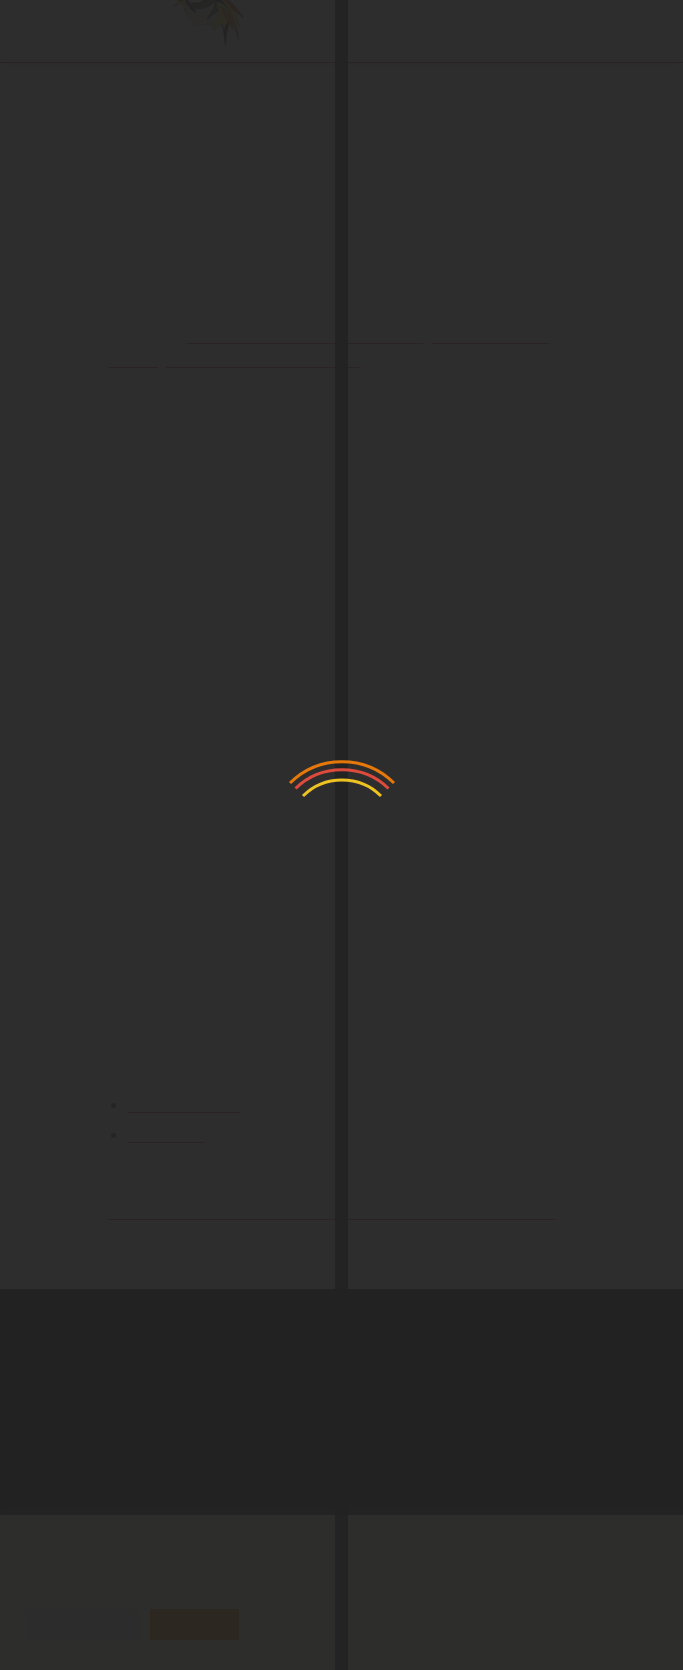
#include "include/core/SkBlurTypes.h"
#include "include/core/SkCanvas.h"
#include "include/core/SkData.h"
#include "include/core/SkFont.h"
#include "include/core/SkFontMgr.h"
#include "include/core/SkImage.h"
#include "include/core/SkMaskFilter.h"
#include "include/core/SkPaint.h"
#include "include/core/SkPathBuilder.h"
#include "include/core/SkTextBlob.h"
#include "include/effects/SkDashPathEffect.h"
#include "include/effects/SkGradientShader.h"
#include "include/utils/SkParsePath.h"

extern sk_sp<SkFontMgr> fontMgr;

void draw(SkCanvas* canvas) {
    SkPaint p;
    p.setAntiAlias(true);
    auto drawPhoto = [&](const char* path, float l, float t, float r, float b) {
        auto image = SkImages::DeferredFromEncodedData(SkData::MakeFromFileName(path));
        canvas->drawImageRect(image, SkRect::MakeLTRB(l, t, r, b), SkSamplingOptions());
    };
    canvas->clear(0xFFFFFFFF);
    canvas->save();
    canvas->clipRect(SkRect::MakeLTRB(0, 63, 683, 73));
    p.setColor(0xFFBBBBBB);
    p.setMaskFilter(SkMaskFilter::MakeBlur(kNormal_SkBlurStyle, 5));
    canvas->drawRect(SkRect::MakeLTRB(2, -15, 681, 63), p);
    p.setMaskFilter(nullptr);
    canvas->restore();
    p.setColor(0xFFCC3333);
    canvas->drawRect(SkRect::MakeLTRB(0, 62, 683, 63), p);
    drawPhoto("media/1.png", 173, 0, 244, 46);
    {
        const struct { float l, t, r, b; SkColor color; } items[] = {
            {187, 343, 423, 344, 0xFFCC3333},
            {108, 367, 158, 368, 0xFFCC3333},
            {166, 367, 359, 368, 0xFFCC3333},
        };
        for (auto [l, t, r, b, color] : items) {
            p.setColor(color);
            canvas->drawRect(SkRect::MakeLTRB(l, t, r, b), p);
        }
    }
    p.setColor(0xFF3A4D5E);
    canvas->drawCircle(113.5f, 1105.5f, 2.5f, p);
    p.setColor(0xFFCC3333);
    canvas->drawRect(SkRect::MakeLTRB(128, 1112, 240, 1113), p);
    p.setColor(0xFF3A4D5E);
    canvas->drawCircle(113.5f, 1135.5f, 2.5f, p);
    {
        const struct { float l, t, r, b; SkColor color; } items[] = {
            {128, 1142, 204, 1143, 0xFFCC3333},
            {108, 1219, 555, 1220, 0xFFCC3333},
            {0, 1289, 683, 1515, 0xFF232323},
        };
        for (auto [l, t, r, b, color] : items) {
            p.setColor(color);
            canvas->drawRect(SkRect::MakeLTRB(l, t, r, b), p);
        }
    }
    p.setColor(0x4DACABAB);
    p.setMaskFilter(SkMaskFilter::MakeBlur(kNormal_SkBlurStyle, 5));
    canvas->drawRect(SkRect::MakeLTRB(0, 1514, 683, 1669), p);
    p.setMaskFilter(nullptr);
    {
        const struct { float l, t, r, b; SkColor color; } items[] = {
            {0, 1515, 683, 1670, 0xFFF5F4E0},
            {25, 1609, 140, 1640, 0xFFDEDFE0},
            {150, 1609, 239, 1640, 0xFFEF7B07},
            {0, 0, 348, 1670, 0xF2222222},
            {431, 343, 549, 344, 0xFFCC3333},
            {335, 0, 683, 1670, 0xF2222222},
        };
        for (auto [l, t, r, b, color] : items) {
            p.setColor(color);
            canvas->drawRect(SkRect::MakeLTRB(l, t, r, b), p);
        }
    }
    p.setStyle(SkPaint::kStroke_Style);
    p.setStrokeWidth(3);
    p.setColor(0xF2EF7B07);
    canvas->drawPath(SkPathBuilder().moveTo(290, 783).cubicTo(318.5f, 754.5f, 365.5f, 754.5f, 394, 783).detach(), p);
    p.setColor(0xF2E74C3C);
    canvas->drawPath(SkPathBuilder().moveTo(295.5f, 788.5f).cubicTo(321, 763.5f, 363, 763.5f, 388.5f, 788.5f).detach(), p);
    p.setColor(0xF2F9C922);
    canvas->drawPath(SkPathBuilder().moveTo(303, 796).cubicTo(324, 774.5f, 360, 774.5f, 381, 796).detach(), p);
}
